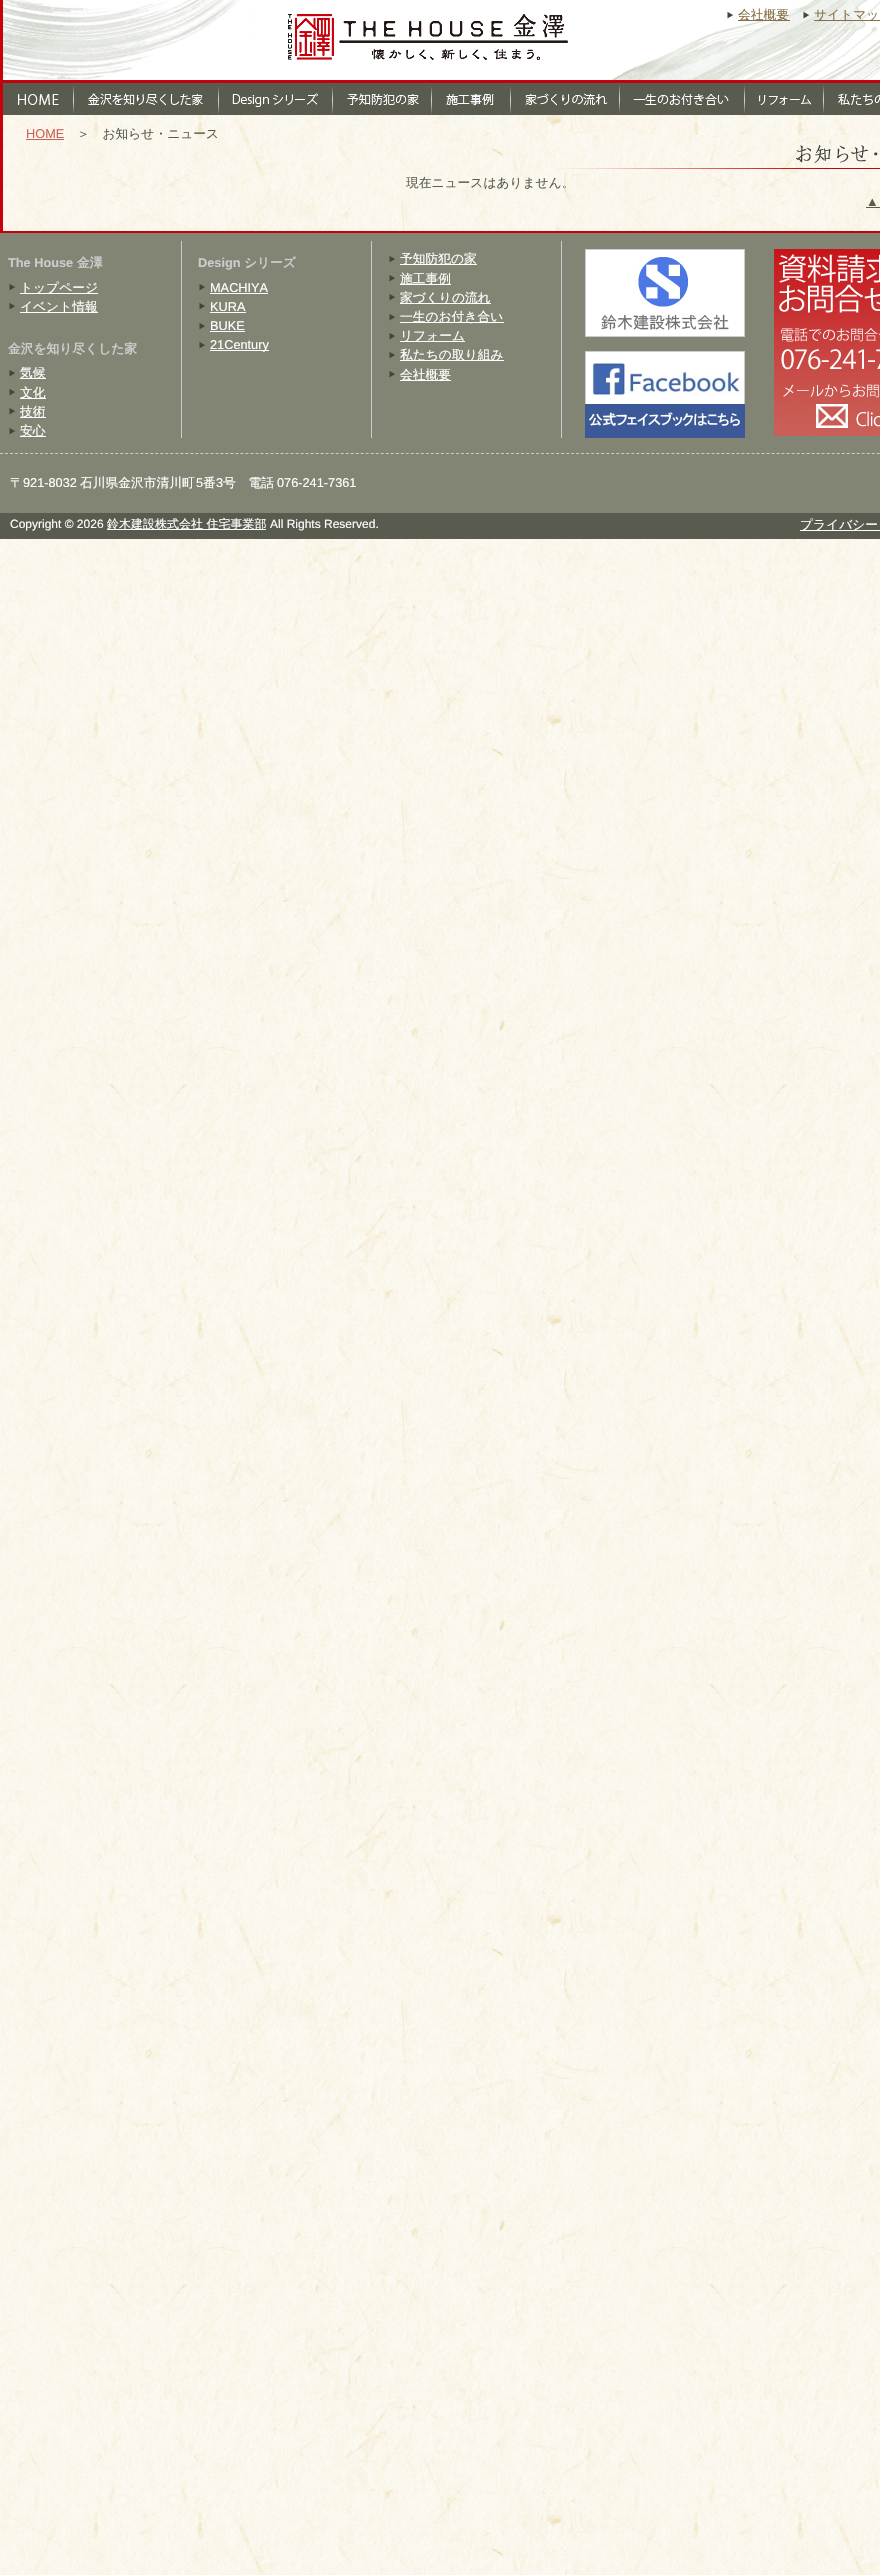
#include "include/core/SkBlurTypes.h"
#include "include/core/SkCanvas.h"
#include "include/core/SkData.h"
#include "include/core/SkFont.h"
#include "include/core/SkFontMgr.h"
#include "include/core/SkImage.h"
#include "include/core/SkMaskFilter.h"
#include "include/core/SkPaint.h"
#include "include/core/SkPathBuilder.h"
#include "include/core/SkTextBlob.h"
#include "include/effects/SkDashPathEffect.h"
#include "include/effects/SkGradientShader.h"
#include "include/utils/SkParsePath.h"

extern sk_sp<SkFontMgr> fontMgr;

void draw(SkCanvas* canvas) {
    SkPaint p;
    p.setAntiAlias(true);
    auto font = [&](const char* family, int weight, float size, bool italic = false) {
        SkFontStyle style(weight, SkFontStyle::kNormal_Width,
            italic ? SkFontStyle::kItalic_Slant : SkFontStyle::kUpright_Slant);
        SkFont result(fontMgr->matchFamilyStyle(family, style), size);
        result.setSubpixel(true);
        return result;
    };
    auto drawPhoto = [&](const char* path, float l, float t, float r, float b) {
        auto image = SkImages::DeferredFromEncodedData(SkData::MakeFromFileName(path));
        canvas->drawImageRect(image, SkRect::MakeLTRB(l, t, r, b), SkSamplingOptions());
    };
    canvas->clear(0xFFFFFFFF);
    drawPhoto("media/1.png", 3, 0, 880, 80);
    p.setColor(0xFFC7000B);
    canvas->drawRect(SkRect::MakeLTRB(0, 0, 3, 80), p);
    drawPhoto("media/2.png", 727, 11, 734, 19);
    p.setColor(0xFF876E46);
    canvas->drawRect(SkRect::MakeLTRB(738, 20, 790, 21), p);
    auto font1 = font("WenQuanYi Zen Hei", 500, 12.75f);
    canvas->drawString("会社概要", 738, 19, font1, p);
    drawPhoto("media/3.png", 803, 11, 810, 19);
    canvas->drawRect(SkRect::MakeLTRB(814, 20, 880, 21), p);
    canvas->drawString("サイトマッ", 814, 19, font1, p);
    p.setColor(0xFF5A5B4F);
    canvas->drawRect(SkRect::MakeLTRB(3, 83, 880, 115), p);
    p.setColor(0xFFC7000B);
    canvas->drawRect(SkRect::MakeLTRB(0, 80, 880, 83), p);
    drawPhoto("media/18.png", 0, 115, 880, 2575);
    canvas->drawRect(SkRect::MakeLTRB(0, 83, 3, 231), p);
    drawPhoto("media/4.png", 18, 94, 59, 105);
    drawPhoto("media/5.png", 73, 85, 203, 114);
    drawPhoto("media/6.png", 218, 86, 318, 115);
    drawPhoto("media/7.png", 332, 86, 419, 115);
    drawPhoto("media/8.png", 431, 86, 494, 115);
    drawPhoto("media/9.png", 510, 86, 608, 115);
    drawPhoto("media/10.png", 619, 84, 729, 113);
    drawPhoto("media/11.png", 744, 85, 811, 114);
    drawPhoto("media/12.png", 823, 85, 880, 114);
    auto font2 = font("Liberation Sans", 400, 12.75f);
    p.setColor(0xFFC96057);
    canvas->drawString("HOME", 26, 138, font2, p);
    canvas->drawRect(SkRect::MakeLTRB(26, 139, 64, 140), p);
    p.setColor(0xFF5A5B4F);
    canvas->drawString("＞　お知らせ・ニュース", 77, 138, font1, p);
    drawPhoto("media/13.png", 556, 135, 880, 173);
    canvas->drawString("現在ニュースはありません。", 406, 187, font1, p);
    canvas->drawString("▲", 866, 206, font2, p);
    {
        const struct { float l, t, r, b; SkColor color; } items[] = {
            {866, 207, 880, 208, 0xFF5A5B4F},
            {0, 233, 880, 513, 0xFF838574},
            {0, 231, 880, 233, 0xFFC7000B},
            {181, 241, 182, 438, 0xFFCCCCCC},
        };
        for (auto [l, t, r, b, color] : items) {
            p.setColor(color);
            canvas->drawRect(SkRect::MakeLTRB(l, t, r, b), p);
        }
    }
    auto font3 = font("Liberation Sans", 700, 12.75f);
    canvas->drawString("The House", 8, 267, font3, p);
    auto font4 = font("WenQuanYi Zen Hei", 700, 12.75f);
    canvas->drawString("金澤", 77, 267, font4, p);
    drawPhoto("media/14.png", 9, 283, 16, 291);
    p.setColor(0xFFFFFFFF);
    canvas->drawRect(SkRect::MakeLTRB(20, 293, 98, 294), p);
    canvas->drawString("トップページ", 20, 292, font1, p);
    drawPhoto("media/14.png", 9, 302, 16, 310);
    canvas->drawRect(SkRect::MakeLTRB(20, 312, 98, 313), p);
    canvas->drawString("イベント情報", 20, 311, font1, p);
    p.setColor(0xFFCCCCCC);
    canvas->drawString("金沢を知り尽くした家", 8, 353, font4, p);
    drawPhoto("media/14.png", 9, 369, 16, 377);
    p.setColor(0xFFFFFFFF);
    canvas->drawRect(SkRect::MakeLTRB(20, 378, 46, 379), p);
    canvas->drawString("気候", 20, 377, font1, p);
    drawPhoto("media/14.png", 9, 388, 16, 396);
    canvas->drawRect(SkRect::MakeLTRB(20, 398, 46, 399), p);
    canvas->drawString("文化", 20, 397, font1, p);
    drawPhoto("media/14.png", 9, 407, 16, 415);
    canvas->drawRect(SkRect::MakeLTRB(20, 417, 46, 418), p);
    canvas->drawString("技術", 20, 416, font1, p);
    drawPhoto("media/14.png", 9, 427, 16, 435);
    canvas->drawRect(SkRect::MakeLTRB(20, 436, 46, 437), p);
    canvas->drawString("安心", 20, 435, font1, p);
    p.setColor(0xFFCCCCCC);
    canvas->drawRect(SkRect::MakeLTRB(371, 241, 372, 438), p);
    canvas->drawString("Design", 198, 267, font3, p);
    canvas->drawString("シリーズ", 244, 267, font4, p);
    drawPhoto("media/14.png", 199, 283, 206, 291);
    p.setColor(0xFFFFFFFF);
    canvas->drawString("MACHIYA", 210, 292, font2, p);
    canvas->drawRect(SkRect::MakeLTRB(210, 293, 268, 294), p);
    drawPhoto("media/14.png", 199, 302, 206, 310);
    canvas->drawString("KURA", 210, 311, font2, p);
    canvas->drawRect(SkRect::MakeLTRB(210, 312, 246, 313), p);
    drawPhoto("media/14.png", 199, 322, 206, 330);
    canvas->drawString("BUKE", 210, 330, font2, p);
    canvas->drawRect(SkRect::MakeLTRB(210, 331, 245, 332), p);
    drawPhoto("media/14.png", 199, 341, 206, 349);
    canvas->drawRect(SkRect::MakeLTRB(210, 350, 269, 351), p);
    canvas->drawString("21Century", 210, 349, font2, p);
    p.setColor(0xFFCCCCCC);
    canvas->drawRect(SkRect::MakeLTRB(561, 241, 562, 438), p);
    drawPhoto("media/14.png", 389, 255, 396, 263);
    p.setColor(0xFFFFFFFF);
    canvas->drawRect(SkRect::MakeLTRB(400, 264, 477, 265), p);
    canvas->drawString("予知防犯の家", 400, 263, font1, p);
    drawPhoto("media/14.png", 389, 274, 396, 282);
    canvas->drawRect(SkRect::MakeLTRB(400, 284, 451, 285), p);
    canvas->drawString("施工事例", 400, 283, font1, p);
    drawPhoto("media/14.png", 389, 293, 396, 301);
    canvas->drawRect(SkRect::MakeLTRB(400, 303, 491, 304), p);
    canvas->drawString("家づくりの流れ", 400, 302, font1, p);
    drawPhoto("media/14.png", 389, 313, 396, 321);
    canvas->drawRect(SkRect::MakeLTRB(400, 322, 504, 323), p);
    canvas->drawString("一生のお付き合い", 400, 321, font1, p);
    drawPhoto("media/14.png", 389, 332, 396, 340);
    canvas->drawRect(SkRect::MakeLTRB(400, 341, 465, 342), p);
    canvas->drawString("リフォーム", 400, 340, font1, p);
    drawPhoto("media/14.png", 389, 351, 396, 359);
    canvas->drawRect(SkRect::MakeLTRB(400, 360, 504, 361), p);
    canvas->drawString("私たちの取り組み", 400, 359, font1, p);
    drawPhoto("media/14.png", 389, 370, 396, 378);
    canvas->drawRect(SkRect::MakeLTRB(400, 380, 451, 381), p);
    canvas->drawString("会社概要", 400, 379, font1, p);
    drawPhoto("media/15.png", 585, 249, 745, 337);
    drawPhoto("media/16.png", 585, 351, 745, 438);
    drawPhoto("media/17.png", 774, 249, 880, 436);
    p.setStyle(SkPaint::kStroke_Style);
    p.setStrokeWidth(1);
    p.setColor(0xFFCCCCCC);
    p.setPathEffect(SkDashPathEffect::Make({{3, 2.01f}}, 0));
    canvas->drawPath(SkPathBuilder().moveTo(0, 453.5f).lineTo(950, 453.5f).detach(), p);
    p.setPathEffect(nullptr);
    p.setStyle(SkPaint::kFill_Style);
    p.setColor(0xFFFFFFFF);
    canvas->drawString("〒", 10, 487, font1, p);
    canvas->drawString("921-8032", 23, 487, font2, p);
    canvas->drawString("石川県金沢市清川町", 80, 487, font1, p);
    canvas->drawString("5", 196, 487, font2, p);
    canvas->drawString("番", 203, 487, font1, p);
    canvas->drawString("3", 216, 487, font2, p);
    canvas->drawString("号　電話", 223, 487, font1, p);
    canvas->drawString("076-241-7361", 277, 487, font2, p);
    p.setColor(0xFF5A5B4F);
    canvas->drawRect(SkRect::MakeLTRB(0, 513, 880, 539), p);
    auto font5 = font("Liberation Sans", 400, 12);
    p.setColor(0xFFFFFFFF);
    canvas->drawString("Copyright © 2026", 10, 528, font5, p);
    canvas->drawRect(SkRect::MakeLTRB(107, 529, 266, 530), p);
    auto font6 = font("WenQuanYi Zen Hei", 500, 12);
    canvas->drawString("鈴木建設株式会社 住宅事業部", 107, 528, font6, p);
    canvas->drawString("All Rights Reserved.", 270, 528, font5, p);
    canvas->drawRect(SkRect::MakeLTRB(800, 530, 880, 531), p);
    canvas->drawString("プライバシー", 800, 529, font1, p);
}
